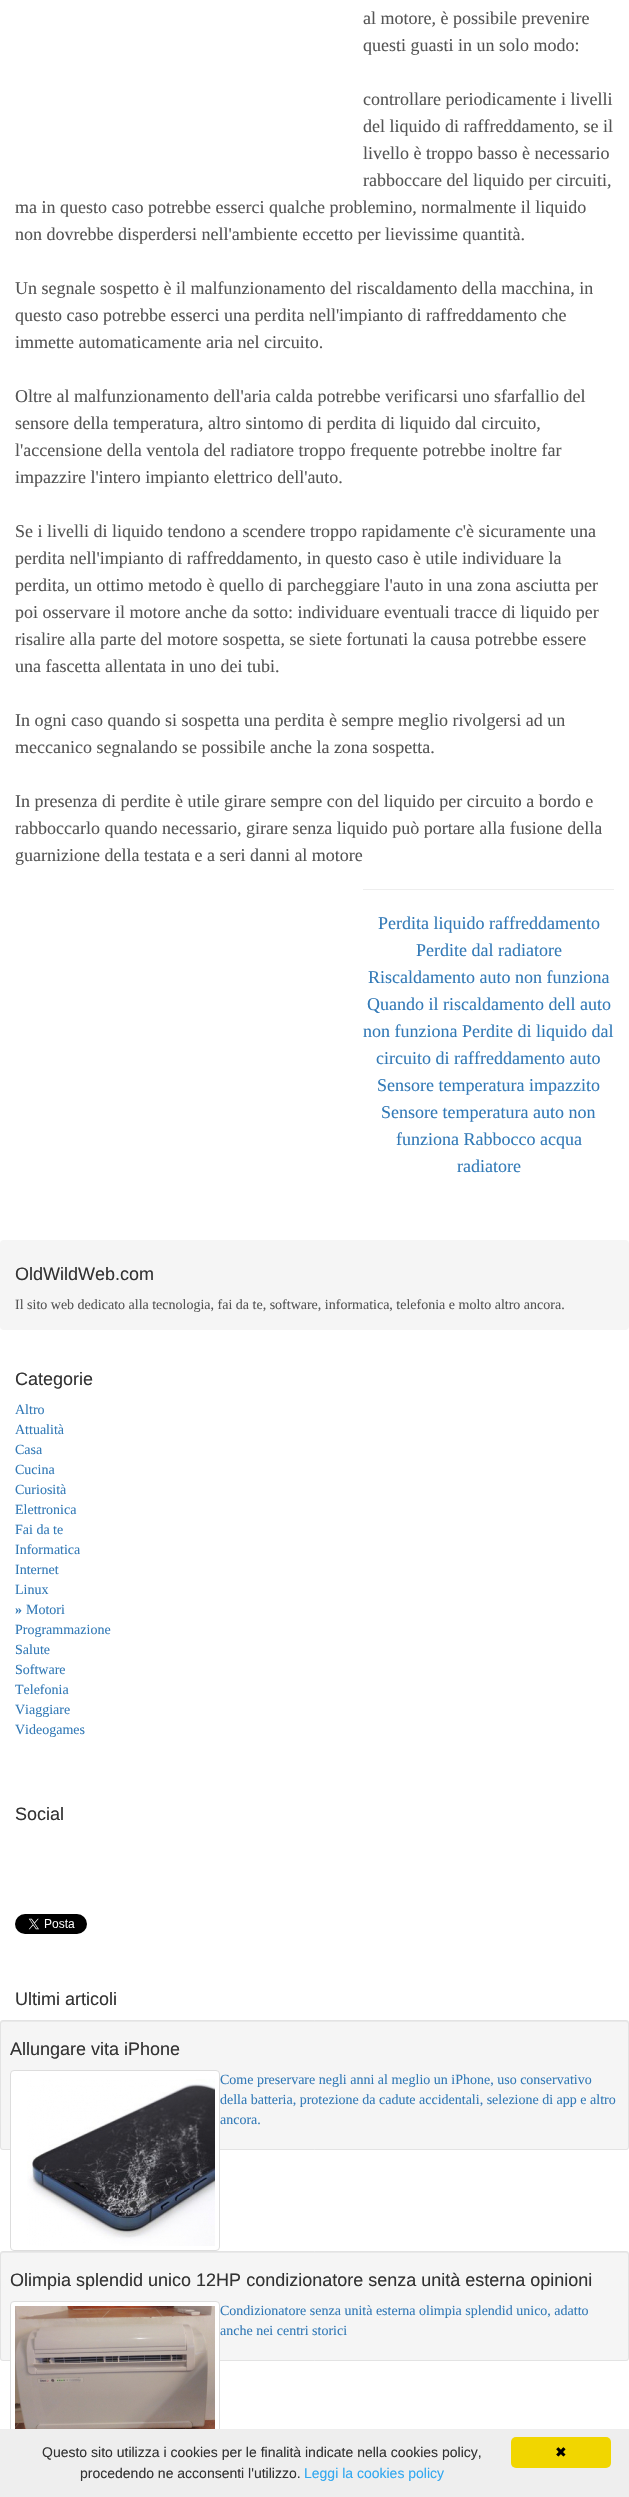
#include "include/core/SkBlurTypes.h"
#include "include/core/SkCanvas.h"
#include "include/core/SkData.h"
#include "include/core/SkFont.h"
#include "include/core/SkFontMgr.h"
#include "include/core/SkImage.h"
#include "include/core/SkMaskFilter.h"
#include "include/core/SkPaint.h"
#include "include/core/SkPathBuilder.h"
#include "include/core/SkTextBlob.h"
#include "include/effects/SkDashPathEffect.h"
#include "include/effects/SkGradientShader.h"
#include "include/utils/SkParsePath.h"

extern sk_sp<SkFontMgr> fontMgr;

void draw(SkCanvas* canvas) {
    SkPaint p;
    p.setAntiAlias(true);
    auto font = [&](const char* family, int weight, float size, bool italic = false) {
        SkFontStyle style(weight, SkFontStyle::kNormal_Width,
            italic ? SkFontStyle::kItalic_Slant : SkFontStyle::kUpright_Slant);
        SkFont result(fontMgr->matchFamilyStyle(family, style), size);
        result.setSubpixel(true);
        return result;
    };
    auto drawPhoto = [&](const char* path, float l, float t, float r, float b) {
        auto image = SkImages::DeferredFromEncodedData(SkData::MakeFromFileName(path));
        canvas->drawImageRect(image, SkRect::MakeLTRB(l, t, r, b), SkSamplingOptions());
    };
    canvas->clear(0xFFFFFFFF);
    auto font1 = font("Liberation Serif", 400, 18);
    p.setColor(0xFF555555);
    {
        const struct { const char* s; float x, y; } items[] = {
            {"al motore, è possibile prevenire", 363, 24},
            {"questi guasti in un solo modo:", 363, 51},
            {"controllare periodicamente i livelli", 363, 105},
            {"del liquido di raffreddamento, se il", 363, 132},
            {"livello è troppo basso è necessario", 363, 159},
            {"rabboccare del liquido per circuiti,", 363, 186},
            {"ma in questo caso potrebbe esserci qualche problemino, normalmente il liquido", 15, 213},
            {"non dovrebbe disperdersi nell'ambiente eccetto per lievissime quantità.", 15, 240},
            {"Un segnale sospetto è il malfunzionamento del riscaldamento della macchina, in", 15, 294},
            {"questo caso potrebbe esserci una perdita nell'impianto di raffreddamento che", 15, 321},
            {"immette automaticamente aria nel circuito.", 15, 348},
            {"Oltre al malfunzionamento dell'aria calda potrebbe verificarsi uno sfarfallio del", 15, 402},
            {"sensore della temperatura, altro sintomo di perdita di liquido dal circuito,", 15, 429},
            {"l'accensione della ventola del radiatore troppo frequente potrebbe inoltre far", 15, 456},
            {"impazzire l'intero impianto elettrico dell'auto.", 15, 483},
            {"Se i livelli di liquido tendono a scendere troppo rapidamente c'è sicuramente una", 15, 537},
            {"perdita nell'impianto di raffreddamento, in questo caso è utile individuare la", 15, 564},
            {"perdita, un ottimo metodo è quello di parcheggiare l'auto in una zona asciutta per", 15, 591},
            {"poi osservare il motore anche da sotto: individuare eventuali tracce di liquido per", 15, 618},
            {"risalire alla parte del motore sospetta, se siete fortunati la causa potrebbe essere", 15, 645},
            {"una fascetta allentata in uno dei tubi.", 15, 672},
            {"In ogni caso quando si sospetta una perdita è sempre meglio rivolgersi ad un", 15, 726},
            {"meccanico segnalando se possibile anche la zona sospetta.", 15, 753},
            {"In presenza di perdite è utile girare sempre con del liquido per circuito a bordo e", 15, 807},
            {"rabboccarlo quando necessario, girare senza liquido può portare alla fusione della", 15, 834},
            {"guarnizione della testata e a seri danni al motore", 15, 861},
        };
        for (auto [s, x, y] : items) {
            canvas->drawString(s, x, y, font1, p);
        }
    }
    p.setColor(0xFFEEEEEE);
    canvas->drawRect(SkRect::MakeLTRB(363, 889, 614, 890), p);
    p.setColor(0xFF337AB7);
    {
        const struct { const char* s; float x, y; } items[] = {
            {"Perdita liquido raffreddamento", 378, 929},
            {"Perdite dal radiatore", 416, 956},
            {"Riscaldamento auto non funziona", 368, 983},
            {"Quando il riscaldamento dell auto", 367, 1010},
            {"non funziona Perdite di liquido dal", 363, 1037},
            {"circuito di raffreddamento auto", 376, 1064},
            {"Sensore temperatura impazzito", 377, 1091},
            {"Sensore temperatura auto non", 381, 1118},
            {"funziona Rabbocco acqua", 396, 1145},
            {"radiatore", 457, 1172},
        };
        for (auto [s, x, y] : items) {
            canvas->drawString(s, x, y, font1, p);
        }
    }
    p.setColor(0xFFF5F5F5);
    canvas->drawRoundRect(SkRect::MakeLTRB(0, 1240, 629, 1330), 4, 4, p);
    auto font2 = font("Liberation Sans", 400, 18);
    p.setColor(0xFF333333);
    canvas->drawString("OldWildWeb.com", 15, 1280, font2, p);
    auto font3 = font("Liberation Serif", 400, 14);
    p.setColor(0xFF555555);
    canvas->drawString("Il sito web dedicato alla tecnologia, fai da te, software, informatica, telefonia e molto altro ancora.", 15, 1309, font3, p);
    p.setColor(0xFF333333);
    canvas->drawString("Categorie", 15, 1385, font2, p);
    p.setColor(0xFF337AB7);
    {
        const struct { const char* s; float x, y; } items[] = {
            {"Altro", 15, 1414},
            {"Attualità", 15, 1434},
            {"Casa", 15, 1454},
            {"Cucina", 15, 1474},
            {"Curiosità", 15, 1494},
            {"Elettronica", 15, 1514},
            {"Fai da te", 15, 1534},
            {"Informatica", 15, 1554},
            {"Internet", 15, 1574},
            {"Linux", 15, 1594},
        };
        for (auto [s, x, y] : items) {
            canvas->drawString(s, x, y, font3, p);
        }
    }
    auto font4 = font("Liberation Serif", 700, 14);
    canvas->drawString("»", 15, 1614, font4, p);
    {
        const struct { const char* s; float x, y; } items[] = {
            {"Motori", 26, 1614},
            {"Programmazione", 15, 1634},
            {"Salute", 15, 1654},
            {"Software", 15, 1674},
            {"Telefonia", 15, 1694},
            {"Viaggiare", 15, 1714},
            {"Videogames", 15, 1734},
        };
        for (auto [s, x, y] : items) {
            canvas->drawString(s, x, y, font3, p);
        }
    }
    p.setColor(0xFF333333);
    canvas->drawString("Social", 15, 1820, font2, p);
    drawPhoto("media/1.png", 15, 1914, 87, 1934);
    canvas->drawString("Ultimi articoli", 15, 2005, font2, p);
    p.setColor(0xFFF5F5F5);
    canvas->drawRoundRect(SkRect::MakeLTRB(0, 2020, 629, 2150), 3, 3, p);
    p.setColor(0xFFE9E9E9);
    canvas->drawPath(SkPathBuilder().moveTo(3, 2022).lineTo(626, 2022).cubicTo(627, 2022, 628, 2023, 628, 2024).cubicTo(628, 2023, 628, 2021, 626, 2021).lineTo(3, 2021).cubicTo(1, 2021, 1, 2023, 1, 2024).cubicTo(1, 2023, 2, 2022, 3, 2022).close().detach(), p);
    p.setStyle(SkPaint::kStroke_Style);
    p.setStrokeWidth(1);
    p.setColor(0xFFE3E3E3);
    canvas->drawRoundRect(SkRect::MakeLTRB(0.5f, 2020.5f, 628.5f, 2149.5f), 2.5f, 2.5f, p);
    p.setStyle(SkPaint::kFill_Style);
    p.setColor(0xFF333333);
    canvas->drawString("Allungare vita iPhone", 10, 2055, font2, p);
    p.setColor(0xFFFFFFFF);
    canvas->drawRoundRect(SkRect::MakeLTRB(10.5f, 2070.5f, 219.5f, 2250.5f), 3.5f, 3.5f, p);
    p.setStyle(SkPaint::kStroke_Style);
    p.setColor(0xFFDDDDDD);
    canvas->drawRoundRect(SkRect::MakeLTRB(10.5f, 2070.5f, 219.5f, 2250.5f), 3.5f, 3.5f, p);
    drawPhoto("media/2.png", 27, 2079, 215, 2246);
    p.setStyle(SkPaint::kFill_Style);
    p.setColor(0xFF337AB7);
    {
        const struct { const char* s; float x, y; } items[] = {
            {"Come preservare negli anni al meglio un iPhone, uso conservativo", 220, 2084},
            {"della batteria, protezione da cadute accidentali, selezione di app e altro", 220, 2104},
            {"ancora.", 220, 2124},
        };
        for (auto [s, x, y] : items) {
            canvas->drawString(s, x, y, font3, p);
        }
    }
    p.setColor(0xFFF5F5F5);
    canvas->drawRoundRect(SkRect::MakeLTRB(0, 2251, 629, 2361), 3, 3, p);
    p.setColor(0xFFE9E9E9);
    canvas->drawPath(SkPathBuilder().moveTo(3, 2253).lineTo(626, 2253).cubicTo(627, 2253, 628, 2254, 628, 2255).cubicTo(628, 2254, 628, 2252, 626, 2252).lineTo(3, 2252).cubicTo(1, 2252, 1, 2254, 1, 2255).cubicTo(1, 2254, 2, 2253, 3, 2253).close().detach(), p);
    p.setStyle(SkPaint::kStroke_Style);
    p.setColor(0xFFE3E3E3);
    canvas->drawRoundRect(SkRect::MakeLTRB(0.5f, 2251.5f, 628.5f, 2360.5f), 2.5f, 2.5f, p);
    p.setStyle(SkPaint::kFill_Style);
    p.setColor(0xFF333333);
    canvas->drawString("Olimpia splendid unico 12HP condizionatore senza unità esterna opinioni", 10, 2286, font2, p);
    p.setColor(0xFFFFFFFF);
    canvas->drawRoundRect(SkRect::MakeLTRB(10.5f, 2301.5f, 219.5f, 2434.5f), 3.5f, 3.5f, p);
    p.setStyle(SkPaint::kStroke_Style);
    p.setColor(0xFFDDDDDD);
    canvas->drawRoundRect(SkRect::MakeLTRB(10.5f, 2301.5f, 219.5f, 2434.5f), 3.5f, 3.5f, p);
    drawPhoto("media/3.png", 15, 2306, 215, 2429);
    p.setStyle(SkPaint::kFill_Style);
    p.setColor(0xFF337AB7);
    canvas->drawString("Condizionatore senza unità esterna olimpia splendid unico, adatto", 220, 2315, font3, p);
    canvas->drawString("anche nei centri storici", 220, 2335, font3, p);
    p.setColor(0xFFEEEEEE);
    canvas->drawRect(SkRect::MakeLTRB(0, 2429, 629, 2497), p);
    auto font5 = font("Liberation Sans", 400, 14);
    p.setColor(0xFF333333);
    canvas->drawString("Questo sito utilizza i cookies per le finalità indicate nella cookies policy,", 42, 2457, font5, p);
    canvas->drawString("procedendo ne acconsenti l'utilizzo.", 80, 2478, font5, p);
    p.setColor(0xFF31A8F0);
    canvas->drawString("Leggi la cookies policy", 304, 2478, font5, p);
    p.setColor(0xFFF1D600);
    canvas->drawRoundRect(SkRect::MakeLTRB(511, 2437, 611, 2468), 5, 5, p);
    auto font6 = font("DejaVu Sans", 400, 14);
    p.setColor(0xFF000000);
    canvas->drawString("✖", 555, 2457, font6, p);
}
